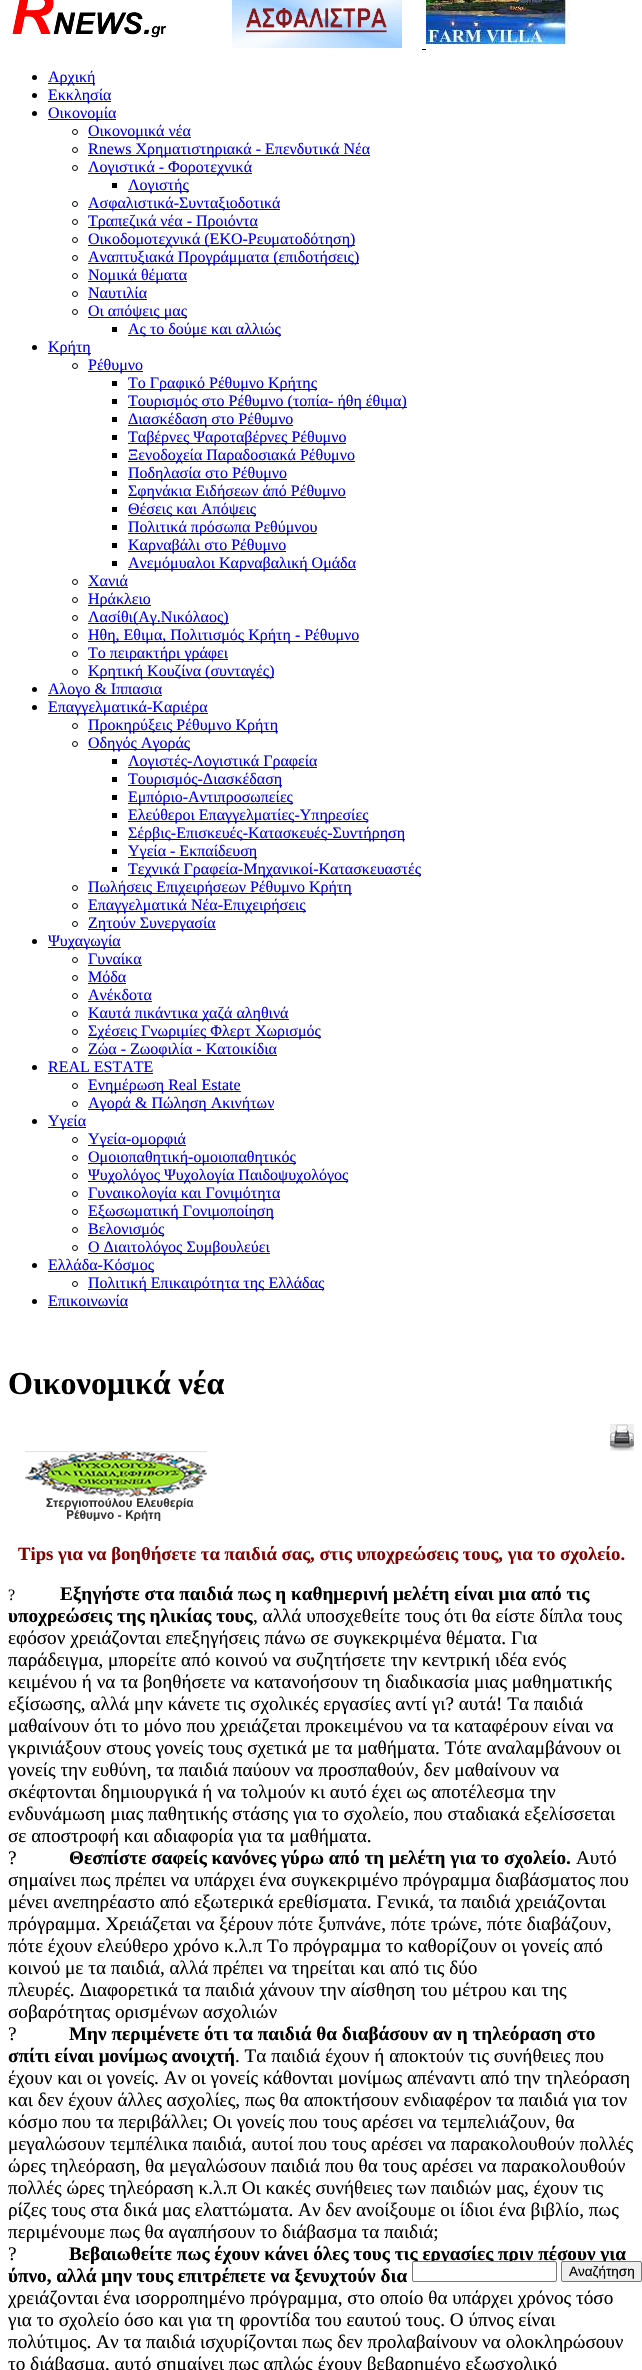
#include "include/core/SkBlurTypes.h"
#include "include/core/SkCanvas.h"
#include "include/core/SkData.h"
#include "include/core/SkFont.h"
#include "include/core/SkFontMgr.h"
#include "include/core/SkImage.h"
#include "include/core/SkMaskFilter.h"
#include "include/core/SkPaint.h"
#include "include/core/SkPathBuilder.h"
#include "include/core/SkTextBlob.h"
#include "include/effects/SkDashPathEffect.h"
#include "include/effects/SkGradientShader.h"
#include "include/utils/SkParsePath.h"

extern sk_sp<SkFontMgr> fontMgr;

void draw(SkCanvas* canvas) {
    SkPaint p;
    p.setAntiAlias(true);
    auto font = [&](const char* family, int weight, float size, bool italic = false) {
        SkFontStyle style(weight, SkFontStyle::kNormal_Width,
            italic ? SkFontStyle::kItalic_Slant : SkFontStyle::kUpright_Slant);
        SkFont result(fontMgr->matchFamilyStyle(family, style), size);
        result.setSubpixel(true);
        return result;
    };
    auto drawPhoto = [&](const char* path, float l, float t, float r, float b) {
        auto image = SkImages::DeferredFromEncodedData(SkData::MakeFromFileName(path));
        canvas->drawImageRect(image, SkRect::MakeLTRB(l, t, r, b), SkSamplingOptions());
    };
    canvas->clear(0xFFFFFFFF);
    drawPhoto("media/1.png", 12, 0, 166, 38);
    drawPhoto("media/2.png", 232, 0, 402, 48);
    drawPhoto("media/3.png", 426, 0, 570, 45);
    p.setColor(0xFF000000);
    canvas->drawRect(SkRect::MakeLTRB(422, 49, 426, 50), p);
    canvas->drawCircle(34.5f, 77.5f, 2.5f, p);
    p.setColor(0xFF0000EE);
    canvas->drawRect(SkRect::MakeLTRB(48, 83, 95, 84), p);
    auto font1 = font("Liberation Serif", 400, 16);
    canvas->drawString("Αρχική", 48, 82, font1, p);
    p.setColor(0xFF000000);
    canvas->drawCircle(34.5f, 95.5f, 2.5f, p);
    p.setColor(0xFF0000EE);
    canvas->drawRect(SkRect::MakeLTRB(48, 101, 111, 102), p);
    canvas->drawString("Εκκλησία", 48, 100, font1, p);
    p.setColor(0xFF000000);
    canvas->drawCircle(34.5f, 113.5f, 2.5f, p);
    p.setColor(0xFF0000EE);
    canvas->drawRect(SkRect::MakeLTRB(48, 119, 116, 120), p);
    canvas->drawString("Οικονομία", 48, 118, font1, p);
    p.setStyle(SkPaint::kStroke_Style);
    p.setStrokeWidth(1);
    p.setColor(0xFF000000);
    canvas->drawCircle(75, 132, 2.5f, p);
    p.setStyle(SkPaint::kFill_Style);
    p.setColor(0xFF0000EE);
    canvas->drawRect(SkRect::MakeLTRB(88, 137, 191, 138), p);
    canvas->drawString("Οικονομικά νέα", 88, 136, font1, p);
    p.setStyle(SkPaint::kStroke_Style);
    p.setColor(0xFF000000);
    canvas->drawCircle(75, 150, 2.5f, p);
    p.setStyle(SkPaint::kFill_Style);
    p.setColor(0xFF0000EE);
    canvas->drawRect(SkRect::MakeLTRB(88, 155, 370, 156), p);
    canvas->drawString("Rnews Χρηματιστηριακά - Επενδυτικά Νέα", 88, 154, font1, p);
    p.setStyle(SkPaint::kStroke_Style);
    p.setColor(0xFF000000);
    canvas->drawCircle(75, 168, 2.5f, p);
    p.setStyle(SkPaint::kFill_Style);
    p.setColor(0xFF0000EE);
    canvas->drawRect(SkRect::MakeLTRB(88, 173, 252, 174), p);
    canvas->drawString("Λογιστικά - Φοροτεχνικά", 88, 172, font1, p);
    p.setColor(0xFF000000);
    canvas->drawRect(SkRect::MakeLTRB(112, 183, 117, 188), p);
    p.setColor(0xFF0000EE);
    canvas->drawRect(SkRect::MakeLTRB(128, 191, 189, 192), p);
    canvas->drawString("Λογιστής", 128, 190, font1, p);
    p.setStyle(SkPaint::kStroke_Style);
    p.setColor(0xFF000000);
    canvas->drawCircle(75, 204, 2.5f, p);
    p.setStyle(SkPaint::kFill_Style);
    p.setColor(0xFF0000EE);
    canvas->drawRect(SkRect::MakeLTRB(88, 209, 280, 210), p);
    canvas->drawString("Ασφαλιστικά-Συνταξιοδοτικά", 88, 208, font1, p);
    p.setStyle(SkPaint::kStroke_Style);
    p.setColor(0xFF000000);
    canvas->drawCircle(75, 222, 2.5f, p);
    p.setStyle(SkPaint::kFill_Style);
    p.setColor(0xFF0000EE);
    canvas->drawRect(SkRect::MakeLTRB(88, 227, 258, 228), p);
    canvas->drawString("Τραπεζικά νέα - Προιόντα", 88, 226, font1, p);
    p.setStyle(SkPaint::kStroke_Style);
    p.setColor(0xFF000000);
    canvas->drawCircle(75, 240, 2.5f, p);
    p.setStyle(SkPaint::kFill_Style);
    p.setColor(0xFF0000EE);
    canvas->drawRect(SkRect::MakeLTRB(88, 245, 355, 246), p);
    canvas->drawString("Οικοδομοτεχνικά (ΕΚΟ-Ρευματοδότηση)", 88, 244, font1, p);
    p.setStyle(SkPaint::kStroke_Style);
    p.setColor(0xFF000000);
    canvas->drawCircle(75, 258, 2.5f, p);
    p.setStyle(SkPaint::kFill_Style);
    p.setColor(0xFF0000EE);
    canvas->drawRect(SkRect::MakeLTRB(88, 263, 359, 264), p);
    canvas->drawString("Αναπτυξιακά Προγράμματα (επιδοτήσεις)", 88, 262, font1, p);
    p.setStyle(SkPaint::kStroke_Style);
    p.setColor(0xFF000000);
    canvas->drawCircle(75, 276, 2.5f, p);
    p.setStyle(SkPaint::kFill_Style);
    p.setColor(0xFF0000EE);
    canvas->drawRect(SkRect::MakeLTRB(88, 281, 187, 282), p);
    canvas->drawString("Νομικά θέματα", 88, 280, font1, p);
    p.setStyle(SkPaint::kStroke_Style);
    p.setColor(0xFF000000);
    canvas->drawCircle(75, 294, 2.5f, p);
    p.setStyle(SkPaint::kFill_Style);
    p.setColor(0xFF0000EE);
    canvas->drawString("Ναυτιλία", 88, 298, font1, p);
    canvas->drawRect(SkRect::MakeLTRB(88, 299, 147, 300), p);
    p.setStyle(SkPaint::kStroke_Style);
    p.setColor(0xFF000000);
    canvas->drawCircle(75, 312, 2.5f, p);
    p.setStyle(SkPaint::kFill_Style);
    p.setColor(0xFF0000EE);
    canvas->drawRect(SkRect::MakeLTRB(88, 317, 187, 318), p);
    canvas->drawString("Οι απόψεις μας", 88, 316, font1, p);
    p.setColor(0xFF000000);
    canvas->drawRect(SkRect::MakeLTRB(112, 327, 117, 332), p);
    p.setColor(0xFF0000EE);
    canvas->drawRect(SkRect::MakeLTRB(128, 335, 281, 336), p);
    canvas->drawString("Ας το δούμε και αλλιώς", 128, 334, font1, p);
    p.setColor(0xFF000000);
    canvas->drawCircle(34.5f, 347.5f, 2.5f, p);
    p.setColor(0xFF0000EE);
    canvas->drawRect(SkRect::MakeLTRB(48, 353, 91, 354), p);
    canvas->drawString("Κρήτη", 48, 352, font1, p);
    p.setStyle(SkPaint::kStroke_Style);
    p.setColor(0xFF000000);
    canvas->drawCircle(75, 366, 2.5f, p);
    p.setStyle(SkPaint::kFill_Style);
    p.setColor(0xFF0000EE);
    canvas->drawRect(SkRect::MakeLTRB(88, 371, 143, 372), p);
    canvas->drawString("Ρέθυμνο", 88, 370, font1, p);
    p.setColor(0xFF000000);
    canvas->drawRect(SkRect::MakeLTRB(112, 381, 117, 386), p);
    p.setColor(0xFF0000EE);
    canvas->drawRect(SkRect::MakeLTRB(128, 389, 317, 390), p);
    canvas->drawString("Το Γραφικό Ρέθυμνο Κρήτης", 128, 388, font1, p);
    p.setColor(0xFF000000);
    canvas->drawRect(SkRect::MakeLTRB(112, 399, 117, 404), p);
    p.setColor(0xFF0000EE);
    canvas->drawRect(SkRect::MakeLTRB(128, 407, 407, 408), p);
    canvas->drawString("Τουρισμός στο Ρέθυμνο (τοπία- ήθη έθιμα)", 128, 406, font1, p);
    p.setColor(0xFF000000);
    canvas->drawRect(SkRect::MakeLTRB(112, 417, 117, 422), p);
    p.setColor(0xFF0000EE);
    canvas->drawRect(SkRect::MakeLTRB(128, 425, 293, 426), p);
    canvas->drawString("Διασκέδαση στο Ρέθυμνο", 128, 424, font1, p);
    p.setColor(0xFF000000);
    canvas->drawRect(SkRect::MakeLTRB(112, 435, 117, 440), p);
    p.setColor(0xFF0000EE);
    canvas->drawRect(SkRect::MakeLTRB(128, 443, 346, 444), p);
    canvas->drawString("Ταβέρνες Ψαροταβέρνες Ρέθυμνο", 128, 442, font1, p);
    p.setColor(0xFF000000);
    canvas->drawRect(SkRect::MakeLTRB(112, 453, 117, 458), p);
    p.setColor(0xFF0000EE);
    canvas->drawRect(SkRect::MakeLTRB(128, 461, 355, 462), p);
    canvas->drawString("Ξενοδοχεία Παραδοσιακά Ρέθυμνο", 128, 460, font1, p);
    p.setColor(0xFF000000);
    canvas->drawRect(SkRect::MakeLTRB(112, 471, 117, 476), p);
    p.setColor(0xFF0000EE);
    canvas->drawRect(SkRect::MakeLTRB(128, 479, 287, 480), p);
    canvas->drawString("Ποδηλασία στο Ρέθυμνο", 128, 478, font1, p);
    p.setColor(0xFF000000);
    canvas->drawRect(SkRect::MakeLTRB(112, 489, 117, 494), p);
    p.setColor(0xFF0000EE);
    canvas->drawRect(SkRect::MakeLTRB(128, 497, 346, 498), p);
    canvas->drawString("Σφηνάκια Ειδήσεων άπό Ρέθυμνο", 128, 496, font1, p);
    p.setColor(0xFF000000);
    canvas->drawRect(SkRect::MakeLTRB(112, 507, 117, 512), p);
    p.setColor(0xFF0000EE);
    canvas->drawRect(SkRect::MakeLTRB(128, 515, 256, 516), p);
    canvas->drawString("Θέσεις και Απόψεις", 128, 514, font1, p);
    p.setColor(0xFF000000);
    canvas->drawRect(SkRect::MakeLTRB(112, 525, 117, 530), p);
    p.setColor(0xFF0000EE);
    canvas->drawRect(SkRect::MakeLTRB(128, 533, 317, 534), p);
    canvas->drawString("Πολιτικά πρόσωπα Ρεθύμνου", 128, 532, font1, p);
    p.setColor(0xFF000000);
    canvas->drawRect(SkRect::MakeLTRB(112, 543, 117, 548), p);
    p.setColor(0xFF0000EE);
    canvas->drawRect(SkRect::MakeLTRB(128, 551, 286, 552), p);
    canvas->drawString("Καρναβάλι στο Ρέθυμνο", 128, 550, font1, p);
    p.setColor(0xFF000000);
    canvas->drawRect(SkRect::MakeLTRB(112, 561, 117, 566), p);
    p.setColor(0xFF0000EE);
    canvas->drawRect(SkRect::MakeLTRB(128, 569, 356, 570), p);
    canvas->drawString("Ανεμόμυαλοι Καρναβαλική Ομάδα", 128, 568, font1, p);
    p.setStyle(SkPaint::kStroke_Style);
    p.setColor(0xFF000000);
    canvas->drawCircle(75, 582, 2.5f, p);
    p.setStyle(SkPaint::kFill_Style);
    p.setColor(0xFF0000EE);
    canvas->drawString("Χανιά", 88, 586, font1, p);
    canvas->drawRect(SkRect::MakeLTRB(88, 587, 128, 588), p);
    p.setStyle(SkPaint::kStroke_Style);
    p.setColor(0xFF000000);
    canvas->drawCircle(75, 600, 2.5f, p);
    p.setStyle(SkPaint::kFill_Style);
    p.setColor(0xFF0000EE);
    canvas->drawRect(SkRect::MakeLTRB(88, 605, 151, 606), p);
    canvas->drawString("Ηράκλειο", 88, 604, font1, p);
    p.setStyle(SkPaint::kStroke_Style);
    p.setColor(0xFF000000);
    canvas->drawCircle(75, 618, 2.5f, p);
    p.setStyle(SkPaint::kFill_Style);
    p.setColor(0xFF0000EE);
    canvas->drawRect(SkRect::MakeLTRB(88, 623, 229, 624), p);
    canvas->drawString("Λασίθι(Αγ.Νικόλαος)", 88, 622, font1, p);
    p.setStyle(SkPaint::kStroke_Style);
    p.setColor(0xFF000000);
    canvas->drawCircle(75, 636, 2.5f, p);
    p.setStyle(SkPaint::kFill_Style);
    p.setColor(0xFF0000EE);
    canvas->drawRect(SkRect::MakeLTRB(88, 641, 359, 642), p);
    canvas->drawString("Ηθη, Εθιμα, Πολιτισμός Κρήτη - Ρέθυμνο", 88, 640, font1, p);
    p.setStyle(SkPaint::kStroke_Style);
    p.setColor(0xFF000000);
    canvas->drawCircle(75, 654, 2.5f, p);
    p.setStyle(SkPaint::kFill_Style);
    p.setColor(0xFF0000EE);
    canvas->drawRect(SkRect::MakeLTRB(88, 659, 228, 660), p);
    canvas->drawString("Το πειρακτήρι γράφει", 88, 658, font1, p);
    p.setStyle(SkPaint::kStroke_Style);
    p.setColor(0xFF000000);
    canvas->drawCircle(75, 672, 2.5f, p);
    p.setStyle(SkPaint::kFill_Style);
    p.setColor(0xFF0000EE);
    canvas->drawRect(SkRect::MakeLTRB(88, 677, 274, 678), p);
    canvas->drawString("Κρητική Κουζίνα (συνταγές)", 88, 676, font1, p);
    p.setColor(0xFF000000);
    canvas->drawCircle(34.5f, 689.5f, 2.5f, p);
    p.setColor(0xFF0000EE);
    canvas->drawRect(SkRect::MakeLTRB(48, 695, 162, 696), p);
    canvas->drawString("Αλογο & Ιππασια", 48, 694, font1, p);
    p.setColor(0xFF000000);
    canvas->drawCircle(34.5f, 707.5f, 2.5f, p);
    p.setColor(0xFF0000EE);
    canvas->drawRect(SkRect::MakeLTRB(48, 713, 208, 714), p);
    canvas->drawString("Επαγγελματικά-Καριέρα", 48, 712, font1, p);
    p.setStyle(SkPaint::kStroke_Style);
    p.setColor(0xFF000000);
    canvas->drawCircle(75, 726, 2.5f, p);
    p.setStyle(SkPaint::kFill_Style);
    p.setColor(0xFF0000EE);
    canvas->drawRect(SkRect::MakeLTRB(88, 731, 278, 732), p);
    canvas->drawString("Προκηρύξεις Ρέθυμνο Κρήτη", 88, 730, font1, p);
    p.setStyle(SkPaint::kStroke_Style);
    p.setColor(0xFF000000);
    canvas->drawCircle(75, 744, 2.5f, p);
    p.setStyle(SkPaint::kFill_Style);
    p.setColor(0xFF0000EE);
    canvas->drawRect(SkRect::MakeLTRB(88, 749, 190, 750), p);
    canvas->drawString("Οδηγός Αγοράς", 88, 748, font1, p);
    p.setColor(0xFF000000);
    canvas->drawRect(SkRect::MakeLTRB(112, 759, 117, 764), p);
    p.setColor(0xFF0000EE);
    canvas->drawRect(SkRect::MakeLTRB(128, 767, 317, 768), p);
    canvas->drawString("Λογιστές-Λογιστικά Γραφεία", 128, 766, font1, p);
    p.setColor(0xFF000000);
    canvas->drawRect(SkRect::MakeLTRB(112, 777, 117, 782), p);
    p.setColor(0xFF0000EE);
    canvas->drawRect(SkRect::MakeLTRB(128, 785, 282, 786), p);
    canvas->drawString("Τουρισμός-Διασκέδαση", 128, 784, font1, p);
    p.setColor(0xFF000000);
    canvas->drawRect(SkRect::MakeLTRB(112, 795, 117, 800), p);
    p.setColor(0xFF0000EE);
    canvas->drawRect(SkRect::MakeLTRB(128, 803, 293, 804), p);
    canvas->drawString("Εμπόριο-Αντιπροσωπείες", 128, 802, font1, p);
    p.setColor(0xFF000000);
    canvas->drawRect(SkRect::MakeLTRB(112, 813, 117, 818), p);
    p.setColor(0xFF0000EE);
    canvas->drawRect(SkRect::MakeLTRB(128, 821, 368, 822), p);
    canvas->drawString("Ελεύθεροι Επαγγελματίες-Υπηρεσίες", 128, 820, font1, p);
    p.setColor(0xFF000000);
    canvas->drawRect(SkRect::MakeLTRB(112, 831, 117, 836), p);
    p.setColor(0xFF0000EE);
    canvas->drawRect(SkRect::MakeLTRB(128, 839, 405, 840), p);
    canvas->drawString("Σέρβις-Επισκευές-Κατασκευές-Συντήρηση", 128, 838, font1, p);
    p.setColor(0xFF000000);
    canvas->drawRect(SkRect::MakeLTRB(112, 849, 117, 854), p);
    p.setColor(0xFF0000EE);
    canvas->drawRect(SkRect::MakeLTRB(128, 857, 257, 858), p);
    canvas->drawString("Υγεία - Εκπαίδευση", 128, 856, font1, p);
    p.setColor(0xFF000000);
    canvas->drawRect(SkRect::MakeLTRB(112, 867, 117, 872), p);
    p.setColor(0xFF0000EE);
    canvas->drawRect(SkRect::MakeLTRB(128, 875, 421, 876), p);
    canvas->drawString("Τεχνικά Γραφεία-Μηχανικοί-Κατασκευαστές", 128, 874, font1, p);
    p.setStyle(SkPaint::kStroke_Style);
    p.setColor(0xFF000000);
    canvas->drawCircle(75, 888, 2.5f, p);
    p.setStyle(SkPaint::kFill_Style);
    p.setColor(0xFF0000EE);
    canvas->drawRect(SkRect::MakeLTRB(88, 893, 352, 894), p);
    canvas->drawString("Πωλήσεις Επιχειρήσεων Ρέθυμνο Κρήτη", 88, 892, font1, p);
    p.setStyle(SkPaint::kStroke_Style);
    p.setColor(0xFF000000);
    canvas->drawCircle(75, 906, 2.5f, p);
    p.setStyle(SkPaint::kFill_Style);
    p.setColor(0xFF0000EE);
    canvas->drawRect(SkRect::MakeLTRB(88, 911, 306, 912), p);
    canvas->drawString("Επαγγελματικά Νέα-Επιχειρήσεις", 88, 910, font1, p);
    p.setStyle(SkPaint::kStroke_Style);
    p.setColor(0xFF000000);
    canvas->drawCircle(75, 924, 2.5f, p);
    p.setStyle(SkPaint::kFill_Style);
    p.setColor(0xFF0000EE);
    canvas->drawRect(SkRect::MakeLTRB(88, 929, 216, 930), p);
    canvas->drawString("Ζητούν Συνεργασία", 88, 928, font1, p);
    p.setColor(0xFF000000);
    canvas->drawCircle(34.5f, 941.5f, 2.5f, p);
    p.setColor(0xFF0000EE);
    canvas->drawRect(SkRect::MakeLTRB(48, 947, 121, 948), p);
    canvas->drawString("Ψυχαγωγία", 48, 946, font1, p);
    p.setStyle(SkPaint::kStroke_Style);
    p.setColor(0xFF000000);
    canvas->drawCircle(75, 960, 2.5f, p);
    p.setStyle(SkPaint::kFill_Style);
    p.setColor(0xFF0000EE);
    canvas->drawString("Γυναίκα", 88, 964, font1, p);
    canvas->drawRect(SkRect::MakeLTRB(88, 965, 142, 966), p);
    p.setStyle(SkPaint::kStroke_Style);
    p.setColor(0xFF000000);
    canvas->drawCircle(75, 978, 2.5f, p);
    p.setStyle(SkPaint::kFill_Style);
    p.setColor(0xFF0000EE);
    canvas->drawString("Μόδα", 88, 982, font1, p);
    canvas->drawRect(SkRect::MakeLTRB(88, 983, 126, 984), p);
    p.setStyle(SkPaint::kStroke_Style);
    p.setColor(0xFF000000);
    canvas->drawCircle(75, 996, 2.5f, p);
    p.setStyle(SkPaint::kFill_Style);
    p.setColor(0xFF0000EE);
    canvas->drawString("Ανέκδοτα", 88, 1000, font1, p);
    canvas->drawRect(SkRect::MakeLTRB(88, 1001, 152, 1002), p);
    p.setStyle(SkPaint::kStroke_Style);
    p.setColor(0xFF000000);
    canvas->drawCircle(75, 1014, 2.5f, p);
    p.setStyle(SkPaint::kFill_Style);
    p.setColor(0xFF0000EE);
    canvas->drawRect(SkRect::MakeLTRB(88, 1019, 289, 1020), p);
    canvas->drawString("Καυτά πικάντικα χαζά αληθινά", 88, 1018, font1, p);
    p.setStyle(SkPaint::kStroke_Style);
    p.setColor(0xFF000000);
    canvas->drawCircle(75, 1032, 2.5f, p);
    p.setStyle(SkPaint::kFill_Style);
    p.setColor(0xFF0000EE);
    canvas->drawRect(SkRect::MakeLTRB(88, 1037, 321, 1038), p);
    canvas->drawString("Σχέσεις Γνωριμίες Φλερτ Χωρισμός", 88, 1036, font1, p);
    p.setStyle(SkPaint::kStroke_Style);
    p.setColor(0xFF000000);
    canvas->drawCircle(75, 1050, 2.5f, p);
    p.setStyle(SkPaint::kFill_Style);
    p.setColor(0xFF0000EE);
    canvas->drawRect(SkRect::MakeLTRB(88, 1055, 277, 1056), p);
    canvas->drawString("Ζώα - Ζωοφιλία - Κατοικίδια", 88, 1054, font1, p);
    p.setColor(0xFF000000);
    canvas->drawCircle(34.5f, 1067.5f, 2.5f, p);
    p.setColor(0xFF0000EE);
    canvas->drawString("REAL ESTATE", 48, 1072, font1, p);
    canvas->drawRect(SkRect::MakeLTRB(48, 1073, 153, 1074), p);
    p.setStyle(SkPaint::kStroke_Style);
    p.setColor(0xFF000000);
    canvas->drawCircle(75, 1086, 2.5f, p);
    p.setStyle(SkPaint::kFill_Style);
    p.setColor(0xFF0000EE);
    canvas->drawRect(SkRect::MakeLTRB(88, 1091, 241, 1092), p);
    canvas->drawString("Ενημέρωση Real Estate", 88, 1090, font1, p);
    p.setStyle(SkPaint::kStroke_Style);
    p.setColor(0xFF000000);
    canvas->drawCircle(75, 1104, 2.5f, p);
    p.setStyle(SkPaint::kFill_Style);
    p.setColor(0xFF0000EE);
    canvas->drawRect(SkRect::MakeLTRB(88, 1109, 274, 1110), p);
    canvas->drawString("Αγορά & Πώληση Ακινήτων", 88, 1108, font1, p);
    p.setColor(0xFF000000);
    canvas->drawCircle(34.5f, 1121.5f, 2.5f, p);
    p.setColor(0xFF0000EE);
    canvas->drawRect(SkRect::MakeLTRB(48, 1127, 86, 1128), p);
    canvas->drawString("Υγεία", 48, 1126, font1, p);
    p.setStyle(SkPaint::kStroke_Style);
    p.setColor(0xFF000000);
    canvas->drawCircle(75, 1140, 2.5f, p);
    p.setStyle(SkPaint::kFill_Style);
    p.setColor(0xFF0000EE);
    canvas->drawRect(SkRect::MakeLTRB(88, 1145, 186, 1146), p);
    canvas->drawString("Υγεία-ομορφιά", 88, 1144, font1, p);
    p.setStyle(SkPaint::kStroke_Style);
    p.setColor(0xFF000000);
    canvas->drawCircle(75, 1158, 2.5f, p);
    p.setStyle(SkPaint::kFill_Style);
    p.setColor(0xFF0000EE);
    canvas->drawRect(SkRect::MakeLTRB(88, 1163, 296, 1164), p);
    canvas->drawString("Ομοιοπαθητική-ομοιοπαθητικός", 88, 1162, font1, p);
    p.setStyle(SkPaint::kStroke_Style);
    p.setColor(0xFF000000);
    canvas->drawCircle(75, 1176, 2.5f, p);
    p.setStyle(SkPaint::kFill_Style);
    p.setColor(0xFF0000EE);
    canvas->drawRect(SkRect::MakeLTRB(88, 1181, 348, 1182), p);
    canvas->drawString("Ψυχολόγος Ψυχολογία Παιδοψυχολόγος", 88, 1180, font1, p);
    p.setStyle(SkPaint::kStroke_Style);
    p.setColor(0xFF000000);
    canvas->drawCircle(75, 1194, 2.5f, p);
    p.setStyle(SkPaint::kFill_Style);
    p.setColor(0xFF0000EE);
    canvas->drawRect(SkRect::MakeLTRB(88, 1199, 280, 1200), p);
    canvas->drawString("Γυναικολογία και Γονιμότητα", 88, 1198, font1, p);
    p.setStyle(SkPaint::kStroke_Style);
    p.setColor(0xFF000000);
    canvas->drawCircle(75, 1212, 2.5f, p);
    p.setStyle(SkPaint::kFill_Style);
    p.setColor(0xFF0000EE);
    canvas->drawRect(SkRect::MakeLTRB(88, 1217, 274, 1218), p);
    canvas->drawString("Εξωσωματική Γονιμοποίηση", 88, 1216, font1, p);
    p.setStyle(SkPaint::kStroke_Style);
    p.setColor(0xFF000000);
    canvas->drawCircle(75, 1230, 2.5f, p);
    p.setStyle(SkPaint::kFill_Style);
    p.setColor(0xFF0000EE);
    canvas->drawRect(SkRect::MakeLTRB(88, 1235, 164, 1236), p);
    canvas->drawString("Βελονισμός", 88, 1234, font1, p);
    p.setStyle(SkPaint::kStroke_Style);
    p.setColor(0xFF000000);
    canvas->drawCircle(75, 1248, 2.5f, p);
    p.setStyle(SkPaint::kFill_Style);
    p.setColor(0xFF0000EE);
    canvas->drawRect(SkRect::MakeLTRB(88, 1253, 270, 1254), p);
    canvas->drawString("Ο Διαιτολόγος Συμβουλεύει", 88, 1252, font1, p);
    p.setColor(0xFF000000);
    canvas->drawCircle(34.5f, 1265.5f, 2.5f, p);
    p.setColor(0xFF0000EE);
    canvas->drawRect(SkRect::MakeLTRB(48, 1271, 154, 1272), p);
    canvas->drawString("Ελλάδα-Κόσμος", 48, 1270, font1, p);
    p.setStyle(SkPaint::kStroke_Style);
    p.setColor(0xFF000000);
    canvas->drawCircle(75, 1284, 2.5f, p);
    p.setStyle(SkPaint::kFill_Style);
    p.setColor(0xFF0000EE);
    canvas->drawRect(SkRect::MakeLTRB(88, 1289, 324, 1290), p);
    canvas->drawString("Πολιτική Επικαιρότητα της Ελλάδας", 88, 1288, font1, p);
    p.setColor(0xFF000000);
    canvas->drawCircle(34.5f, 1301.5f, 2.5f, p);
    p.setColor(0xFF0000EE);
    canvas->drawString("Επικοινωνία", 48, 1306, font1, p);
    canvas->drawRect(SkRect::MakeLTRB(48, 1307, 128, 1308), p);
    auto font2 = font("Liberation Serif", 700, 19.2f);
    p.setColor(0xFF000000);
    canvas->drawString("Βεβαιωθείτε πως έχουν κάνει όλες τους τις εργασίες πριν πέσουν για", 69, 2260, font2, p);
    p.setColor(0xFFFFFFFF);
    canvas->drawRoundRect(SkRect::MakeLTRB(412.5f, 2261.5f, 556.5f, 2281.5f), 1.5f, 1.5f, p);
    p.setStyle(SkPaint::kStroke_Style);
    p.setColor(0xFF767676);
    canvas->drawRoundRect(SkRect::MakeLTRB(412.5f, 2261.5f, 556.5f, 2281.5f), 1.5f, 1.5f, p);
    p.setStyle(SkPaint::kFill_Style);
    p.setColor(0xFFEFEFEF);
    canvas->drawRoundRect(SkRect::MakeLTRB(561.5f, 2261.5f, 641.5f, 2281.5f), 1.5f, 1.5f, p);
    p.setStyle(SkPaint::kStroke_Style);
    p.setColor(0xFF767676);
    canvas->drawRoundRect(SkRect::MakeLTRB(561.5f, 2261.5f, 641.5f, 2281.5f), 1.5f, 1.5f, p);
    auto font3 = font("Liberation Sans", 400, 13.5f);
    p.setStyle(SkPaint::kFill_Style);
    p.setColor(0xFF000000);
    canvas->drawString("Αναζήτηση", 569, 2276, font3, p);
    auto font4 = font("Liberation Serif", 700, 32);
    canvas->drawString("Οικονομικά νέα", 8, 1394, font4, p);
    drawPhoto("media/4.png", 610, 1424, 634, 1451);
    drawPhoto("media/5.png", 25, 1451, 207, 1521);
    auto font5 = font("Liberation Serif", 700, 18.7f);
    p.setColor(0xFF800000);
    canvas->drawString("Tips για να βοηθήσετε τα παιδιά σας, στις υποχρεώσεις τους, για το σχολείο.", 18, 1560, font5, p);
    p.setColor(0xFF000000);
    canvas->drawString("?", 8, 1600, font1, p);
    canvas->drawString("Εξηγήστε στα παιδιά πως η καθημερινή μελέτη είναι μια από τις", 60, 1600, font2, p);
    canvas->drawString("υποχρεώσεις της ηλικίας τους", 8, 1622, font2, p);
    auto font6 = font("Liberation Serif", 400, 19.2f);
    {
        const struct { const char* s; float x, y; } items[] = {
            {", αλλά υποσχεθείτε τους ότι θα είστε δίπλα τους", 253, 1622},
            {"εφόσον χρειάζονται επεξηγήσεις πάνω σε συγκεκριμένα θέματα. Για", 8, 1644},
            {"παράδειγμα, μπορείτε από κοινού να συζητήσετε την κεντρική ιδέα ενός", 8, 1666},
            {"κειμένου ή να τα βοηθήσετε να κατανοήσουν τη διαδικασία μιας μαθηματικής", 8, 1688},
            {"εξίσωσης, αλλά μην κάνετε τις σχολικές εργασίες αντί γι? αυτά! Τα παιδιά", 8, 1710},
            {"μαθαίνουν ότι το μόνο που χρειάζεται προκειμένου να τα καταφέρουν είναι να", 8, 1732},
            {"γκρινιάξουν στους γονείς τους σχετικά με τα μαθήματα. Τότε αναλαμβάνουν οι", 8, 1754},
            {"γονείς την ευθύνη, τα παιδιά παύουν να προσπαθούν, δεν μαθαίνουν να", 8, 1776},
            {"σκέφτονται δημιουργικά ή να τολμούν κι αυτό έχει ως αποτέλεσμα την", 8, 1798},
            {"ενδυνάμωση μιας παθητικής στάσης για το σχολείο, που σταδιακά εξελίσσεται", 8, 1820},
            {"σε αποστροφή και αδιαφορία για τα μαθήματα.", 8, 1842},
            {"?", 8, 1864},
        };
        for (auto [s, x, y] : items) {
            canvas->drawString(s, x, y, font6, p);
        }
    }
    canvas->drawString("Θεσπίστε σαφείς κανόνες γύρω από τη μελέτη για το σχολείο.", 69, 1864, font2, p);
    {
        const struct { const char* s; float x, y; } items[] = {
            {"Αυτό", 576, 1864},
            {"σημαίνει πως πρέπει να υπάρχει ένα συγκεκριμένο πρόγραμμα διαβάσματος που", 8, 1886},
            {"μένει ανεπηρέαστο από εξωτερικά ερεθίσματα. Γενικά, τα παιδιά χρειάζονται", 8, 1908},
            {"πρόγραμμα. Χρειάζεται να ξέρουν πότε ξυπνάνε, πότε τρώνε, πότε διαβάζουν,", 8, 1930},
            {"πότε έχουν ελεύθερο χρόνο κ.λ.π Το πρόγραμμα το καθορίζουν οι γονείς από", 8, 1952},
            {"κοινού με τα παιδιά, αλλά πρέπει να τηρείται και από τις δύο", 8, 1974},
            {"πλευρές. Διαφορετικά τα παιδιά χάνουν την αίσθηση του μέτρου και της", 8, 1996},
            {"σοβαρότητας ορισμένων ασχολιών", 8, 2018},
            {"?", 8, 2040},
        };
        for (auto [s, x, y] : items) {
            canvas->drawString(s, x, y, font6, p);
        }
    }
    canvas->drawString("Μην περιμένετε ότι τα παιδιά θα διαβάσουν αν η τηλεόραση στο", 69, 2040, font2, p);
    canvas->drawString("σπίτι είναι μονίμως ανοιχτή", 8, 2062, font2, p);
    {
        const struct { const char* s; float x, y; } items[] = {
            {". Τα παιδιά έχουν ή αποκτούν τις συνήθειες που", 235, 2062},
            {"έχουν και οι γονείς. Αν οι γονείς κάθονται μονίμως απέναντι από την τηλεόραση", 8, 2084},
            {"και δεν έχουν άλλες ασχολίες, πως θα αποκτήσουν ενδιαφέρον τα παιδιά για τον", 8, 2106},
            {"κόσμο που τα περιβάλλει; Οι γονείς που τους αρέσει να τεμπελιάζουν, θα", 8, 2128},
            {"μεγαλώσουν τεμπέλικα παιδιά, αυτοί που τους αρέσει να παρακολουθούν πολλές", 8, 2150},
            {"ώρες τηλεόραση, θα μεγαλώσουν παιδιά που θα τους αρέσει να παρακολουθούν", 8, 2172},
            {"πολλές ώρες τηλεόραση κ.λ.π Οι κακές συνήθειες των παιδιών μας, έχουν τις", 8, 2194},
            {"ρίζες τους στα δικά μας ελαττώματα. Αν δεν ανοίξουμε οι ίδιοι ένα βιβλίο, πως", 8, 2216},
            {"περιμένουμε πως θα αγαπήσουν το διάβασμα τα παιδιά;", 8, 2238},
            {"?", 8, 2260},
        };
        for (auto [s, x, y] : items) {
            canvas->drawString(s, x, y, font6, p);
        }
    }
    canvas->drawString("ύπνο, αλλά μην τους επιτρέπετε να ξενυχτούν δια", 8, 2282, font2, p);
    {
        const struct { const char* s; float x, y; } items[] = {
            {"χρειάζονται ένα ισορροπημένο πρόγραμμα, στο οποίο θα υπάρχει χρόνος τόσο", 8, 2304},
            {"για το σχολείο όσο και για τη φροντίδα του εαυτού τους. Ο ύπνος είναι", 8, 2326},
            {"πολύτιμος. Αν τα παιδιά ισχυρίζονται πως δεν προλαβαίνουν να ολοκληρώσουν", 8, 2348},
            {"το διάβασμα, αυτό σημαίνει πως απλώς έχουν βεβαρημένο εξωσχολικό", 8, 2370},
        };
        for (auto [s, x, y] : items) {
            canvas->drawString(s, x, y, font6, p);
        }
    }
}
